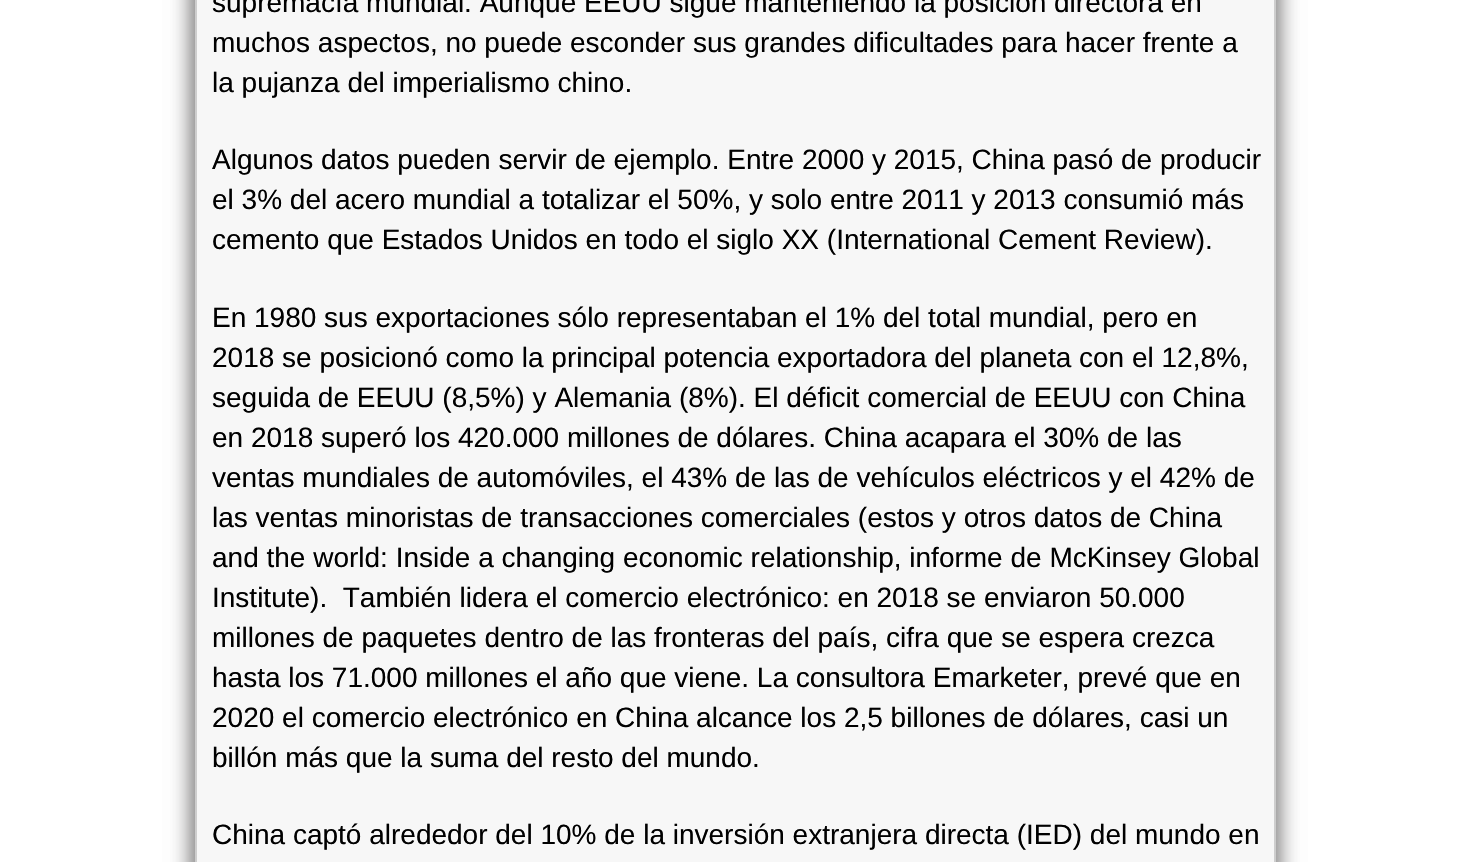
#include "include/core/SkBlurTypes.h"
#include "include/core/SkCanvas.h"
#include "include/core/SkData.h"
#include "include/core/SkFont.h"
#include "include/core/SkFontMgr.h"
#include "include/core/SkImage.h"
#include "include/core/SkMaskFilter.h"
#include "include/core/SkPaint.h"
#include "include/core/SkPathBuilder.h"
#include "include/core/SkTextBlob.h"
#include "include/effects/SkDashPathEffect.h"
#include "include/effects/SkGradientShader.h"
#include "include/utils/SkParsePath.h"

extern sk_sp<SkFontMgr> fontMgr;

void draw(SkCanvas* canvas) {
    SkPaint p;
    p.setAntiAlias(true);
    auto font = [&](const char* family, int weight, float size, bool italic = false) {
        SkFontStyle style(weight, SkFontStyle::kNormal_Width,
            italic ? SkFontStyle::kItalic_Slant : SkFontStyle::kUpright_Slant);
        SkFont result(fontMgr->matchFamilyStyle(family, style), size);
        result.setSubpixel(true);
        return result;
    };
    canvas->clear(0xFFFFFFFF);
    p.setColor(0xFF868585);
    p.setMaskFilter(SkMaskFilter::MakeBlur(kNormal_SkBlurStyle, 11));
    canvas->drawRect(SkRect::MakeLTRB(195, -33, 1275, 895), p);
    p.setMaskFilter(nullptr);
    p.setMaskFilter(SkMaskFilter::MakeBlur(kNormal_SkBlurStyle, 11));
    canvas->drawRect(SkRect::MakeLTRB(195, -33, 1275, 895), p);
    p.setMaskFilter(nullptr);
    {
        const struct { float l, t, r, b; SkColor color; } items[] = {
            {197, 0, 1274, 862, 0xFFF7F7F7},
            {1274, 0, 1276, 862, 0xFFCECECE},
            {195, 0, 197, 862, 0xFFCECECE},
        };
        for (auto [l, t, r, b, color] : items) {
            p.setColor(color);
            canvas->drawRect(SkRect::MakeLTRB(l, t, r, b), p);
        }
    }
    auto font1 = font("Liberation Sans", 400, 28);
    p.setColor(0xFF000000);
    {
        const struct { const char* s; float x, y; } items[] = {
            {"supremacía mundial. Aunque EEUU sigue manteniendo la posición directora en", 212, 12},
            {"muchos aspectos, no puede esconder sus grandes dificultades para hacer frente a", 212, 52},
            {"la pujanza del imperialismo chino.", 212, 92},
            {"Algunos datos pueden servir de ejemplo. Entre 2000 y 2015, China pasó de producir", 212, 169},
            {"el 3% del acero mundial a totalizar el 50%, y solo entre 2011 y 2013 consumió más", 212, 209},
            {"cemento que Estados Unidos en todo el siglo XX (International Cement Review).", 212, 249},
            {"En 1980 sus exportaciones sólo representaban el 1% del total mundial, pero en", 212, 327},
            {"2018 se posicionó como la principal potencia exportadora del planeta con el 12,8%,", 212, 367},
            {"seguida de EEUU (8,5%) y Alemania (8%). El déficit comercial de EEUU con China", 212, 407},
            {"en 2018 superó los 420.000 millones de dólares. China acapara el 30% de las", 212, 447},
            {"ventas mundiales de automóviles, el 43% de las de vehículos eléctricos y el 42% de", 212, 487},
            {"las ventas minoristas de transacciones comerciales (estos y otros datos de China", 212, 527},
            {"and the world: Inside a changing economic relationship, informe de McKinsey Global", 212, 567},
            {"Institute).  También lidera el comercio electrónico: en 2018 se enviaron 50.000", 212, 607},
            {"millones de paquetes dentro de las fronteras del país, cifra que se espera crezca", 212, 647},
            {"hasta los 71.000 millones el año que viene. La consultora Emarketer, prevé que en", 212, 687},
            {"2020 el comercio electrónico en China alcance los 2,5 billones de dólares, casi un", 212, 727},
            {"billón más que la suma del resto del mundo.", 212, 767},
            {"China captó alrededor del 10% de la inversión extranjera directa (IED) del mundo en", 212, 844},
        };
        for (auto [s, x, y] : items) {
            canvas->drawString(s, x, y, font1, p);
        }
    }
}
